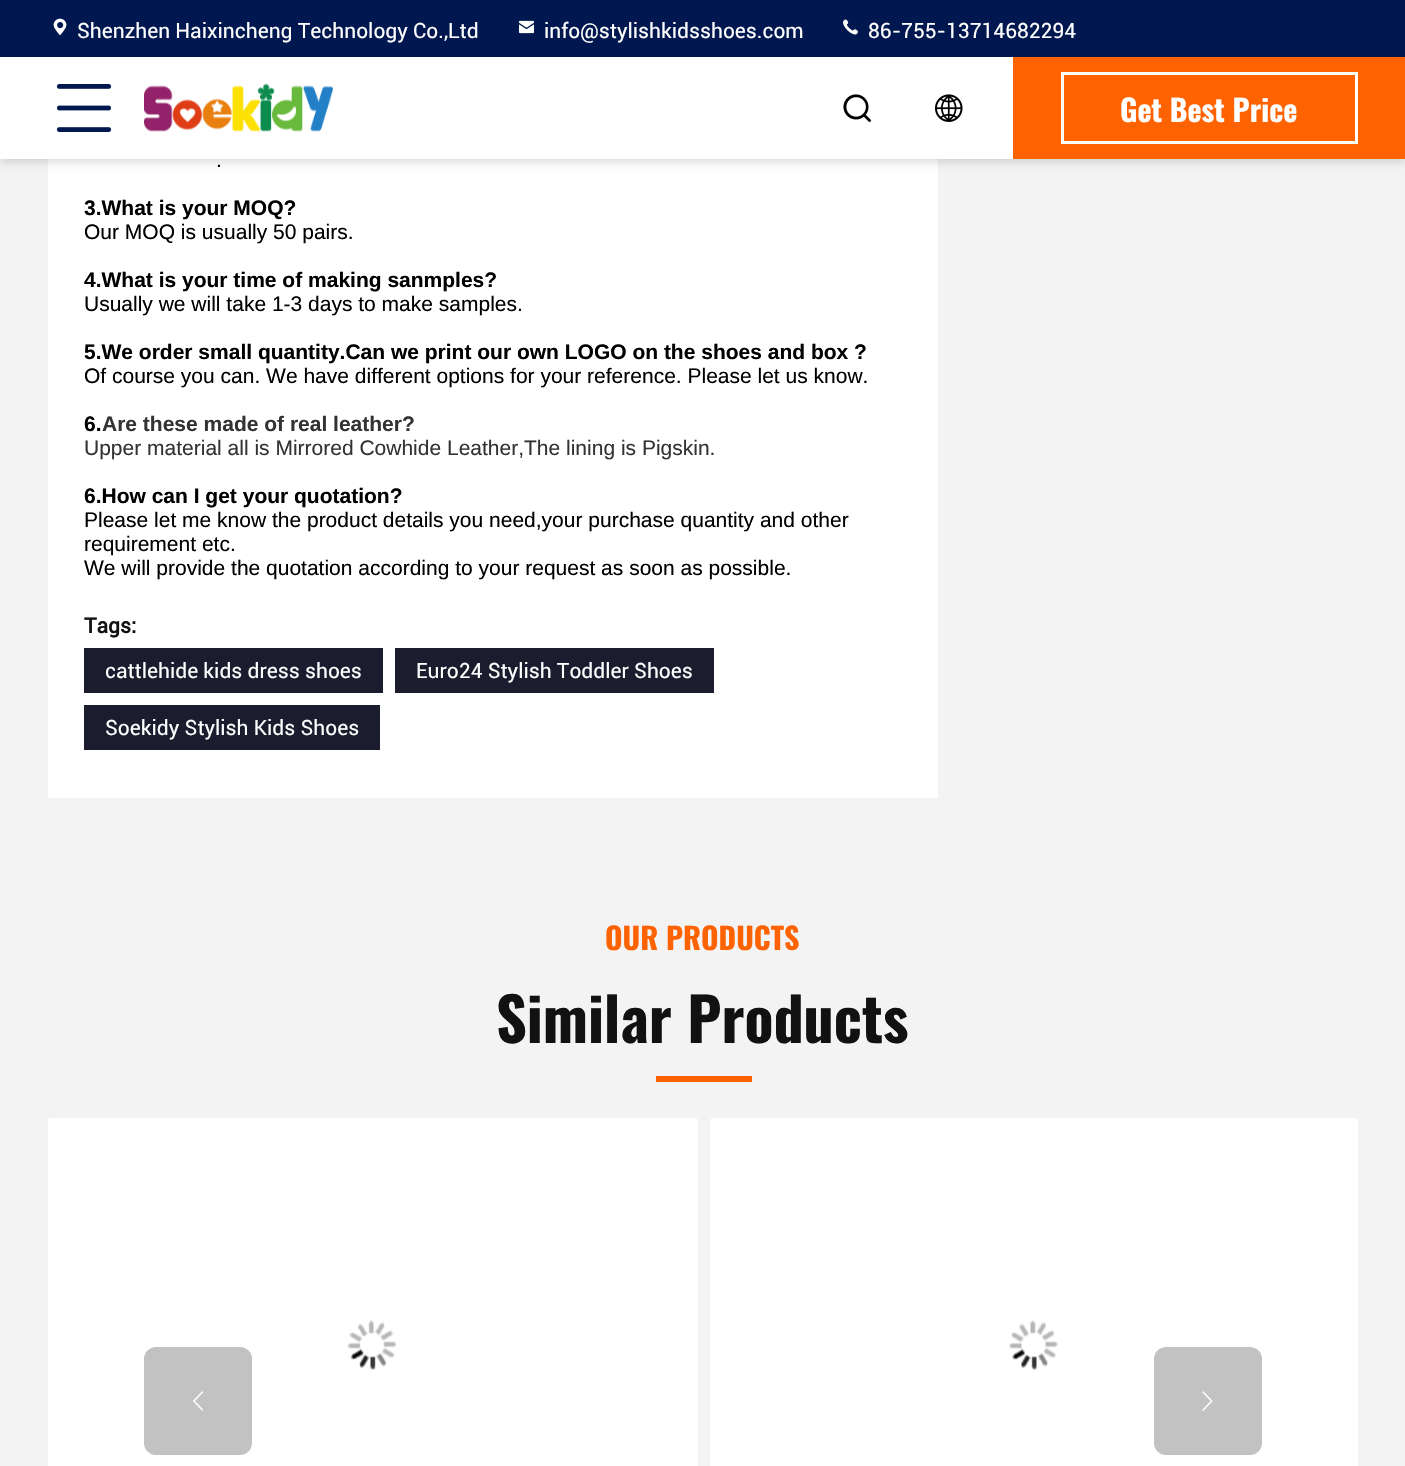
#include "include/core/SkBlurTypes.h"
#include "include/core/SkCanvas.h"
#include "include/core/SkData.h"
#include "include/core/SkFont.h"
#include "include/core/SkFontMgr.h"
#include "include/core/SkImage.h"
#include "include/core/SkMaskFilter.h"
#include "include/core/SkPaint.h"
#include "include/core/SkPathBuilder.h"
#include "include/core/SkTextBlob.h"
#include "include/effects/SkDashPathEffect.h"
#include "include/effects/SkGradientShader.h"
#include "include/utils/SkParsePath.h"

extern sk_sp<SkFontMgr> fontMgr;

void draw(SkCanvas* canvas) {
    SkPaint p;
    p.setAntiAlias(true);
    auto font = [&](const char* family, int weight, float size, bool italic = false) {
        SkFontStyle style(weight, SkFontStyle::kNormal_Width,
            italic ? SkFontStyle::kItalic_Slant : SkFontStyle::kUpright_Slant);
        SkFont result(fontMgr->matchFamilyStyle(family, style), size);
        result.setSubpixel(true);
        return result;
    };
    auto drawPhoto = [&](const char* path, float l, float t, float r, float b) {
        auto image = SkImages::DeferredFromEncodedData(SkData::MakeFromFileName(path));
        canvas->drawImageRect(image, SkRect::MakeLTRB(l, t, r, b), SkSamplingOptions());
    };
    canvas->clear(0xFFF3F3F3);
    p.setColor(0xFFFFFFFF);
    canvas->drawRect(SkRect::MakeLTRB(48, 159, 938, 798), p);
    p.setColor(0x26000000);
    p.setMaskFilter(SkMaskFilter::MakeBlur(kNormal_SkBlurStyle, 4.5f));
    canvas->drawRect(SkRect::MakeLTRB(0, 3, 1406, 162), p);
    p.setMaskFilter(nullptr);
    p.setColor(0xFF00184F);
    canvas->drawRect(SkRect::MakeLTRB(0, 0, 1405, 57), p);
    drawPhoto("media/1.png", 53, 18, 67, 36);
    auto font1 = font("Roboto", 400, 21);
    p.setColor(0xFFFFFFFF);
    canvas->drawString("Shenzhen Haixincheng Technology Co.,Ltd", 77, 38, font1, p);
    drawPhoto("media/2.png", 519, 20, 534, 34);
    canvas->drawString("info@stylishkidsshoes.com", 544, 38, font1, p);
    drawPhoto("media/3.png", 843, 19, 858, 35);
    canvas->drawString("86-755-13714682294", 868, 38, font1, p);
    canvas->drawRect(SkRect::MakeLTRB(0, 57, 1013, 159), p);
    drawPhoto("media/4.png", 57, 84, 111, 132);
    drawPhoto("media/5.png", 144, 83, 333, 132);
    drawPhoto("media/6.png", 843, 94, 871, 122);
    drawPhoto("media/7.png", 935, 94, 963, 122);
    p.setColor(0xFFFF6200);
    canvas->drawRect(SkRect::MakeLTRB(1013, 57, 1405, 159), p);
    p.setStyle(SkPaint::kStroke_Style);
    p.setStrokeWidth(3);
    p.setColor(0xFFFFFFFF);
    canvas->drawRect(SkRect::MakeLTRB(1062.5f, 73.5f, 1356.5f, 142.5f), p);
    auto font2 = font("Oswald", 700, 30);
    p.setStyle(SkPaint::kFill_Style);
    canvas->drawString("Get Best Price", 1120, 122, font2, p);
    auto font3 = font("Liberation Sans", 400, 21);
    p.setColor(0xFF000000);
    canvas->drawString(".", 216, 167, font3, p);
    auto font4 = font("Liberation Sans", 700, 21);
    canvas->drawString("3.What is your MOQ?", 84, 215, font4, p);
    canvas->drawString("Our MOQ is usually 50 pairs.", 84, 239, font3, p);
    canvas->drawString("4.What is your time of making sanmples?", 84, 287, font4, p);
    canvas->drawString("Usually we will take 1-3 days to make samples.", 84, 311, font3, p);
    canvas->drawString("5.We order small quantity.Can we print our own LOGO on the shoes and box ?", 84, 359, font4, p);
    canvas->drawString("Of course you can. We have different options for your reference. Please let us know.", 84, 383, font3, p);
    canvas->drawString("6.", 84, 431, font4, p);
    p.setColor(0xFF333333);
    canvas->drawString("Are these made of real leather?", 102, 431, font4, p);
    canvas->drawString("Upper material all is Mirrored Cowhide Leather,The lining is Pigskin.", 84, 455, font3, p);
    p.setColor(0xFF000000);
    canvas->drawString("6.How can I get your quotation?", 84, 503, font4, p);
    {
        const struct { const char* s; float x, y; } items[] = {
            {"Please let me know the product details you need,your purchase quantity and other", 84, 527},
            {"requirement etc.", 84, 551},
            {"We will provide the quotation according to your request as soon as possible.", 84, 575},
        };
        for (auto [s, x, y] : items) {
            canvas->drawString(s, x, y, font3, p);
        }
    }
    auto font5 = font("Roboto", 700, 21);
    p.setColor(0xFF111111);
    canvas->drawString("Tags:", 84, 633, font5, p);
    p.setColor(0xFF1B1D2E);
    canvas->drawRect(SkRect::MakeLTRB(84, 648, 383, 693), p);
    p.setColor(0xFFFFFFFF);
    canvas->drawString("cattlehide kids dress shoes", 105, 678, font1, p);
    p.setColor(0xFF1B1D2E);
    canvas->drawRect(SkRect::MakeLTRB(395, 648, 714, 693), p);
    p.setColor(0xFFFFFFFF);
    canvas->drawString("Euro24 Stylish Toddler Shoes", 416, 678, font1, p);
    p.setColor(0xFF1B1D2E);
    canvas->drawRect(SkRect::MakeLTRB(84, 705, 380, 750), p);
    p.setColor(0xFFFFFFFF);
    canvas->drawString("Soekidy Stylish Kids Shoes", 105, 735, font1, p);
    p.setColor(0xFFFF6200);
    canvas->drawString("OUR PRODUCTS", 605, 950, font2, p);
    auto font6 = font("Oswald", 700, 60);
    p.setColor(0xFF111111);
    canvas->drawString("Similar Products", 496, 1043, font6, p);
    p.setColor(0xFFFF6200);
    canvas->drawRect(SkRect::MakeLTRB(656, 1076, 752, 1082), p);
    p.setColor(0xFFFFFFFF);
    canvas->drawRoundRect(SkRect::MakeLTRB(48, 1118, 698, 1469), 3, 3, p);
    drawPhoto("media/8.png", 348, 1320, 396, 1370);
    canvas->drawRoundRect(SkRect::MakeLTRB(710, 1118, 1358, 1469), 3, 3, p);
    drawPhoto("media/9.png", 1009, 1320, 1058, 1370);
    p.setColor(0xFFC2C2C2);
    canvas->drawRoundRect(SkRect::MakeLTRB(144, 1347, 252, 1455), 12, 12, p);
    drawPhoto("media/10.png", 193, 1391, 203, 1411);
    canvas->drawRoundRect(SkRect::MakeLTRB(1154, 1347, 1262, 1455), 12, 12, p);
    drawPhoto("media/11.png", 1202, 1391, 1213, 1411);
}
